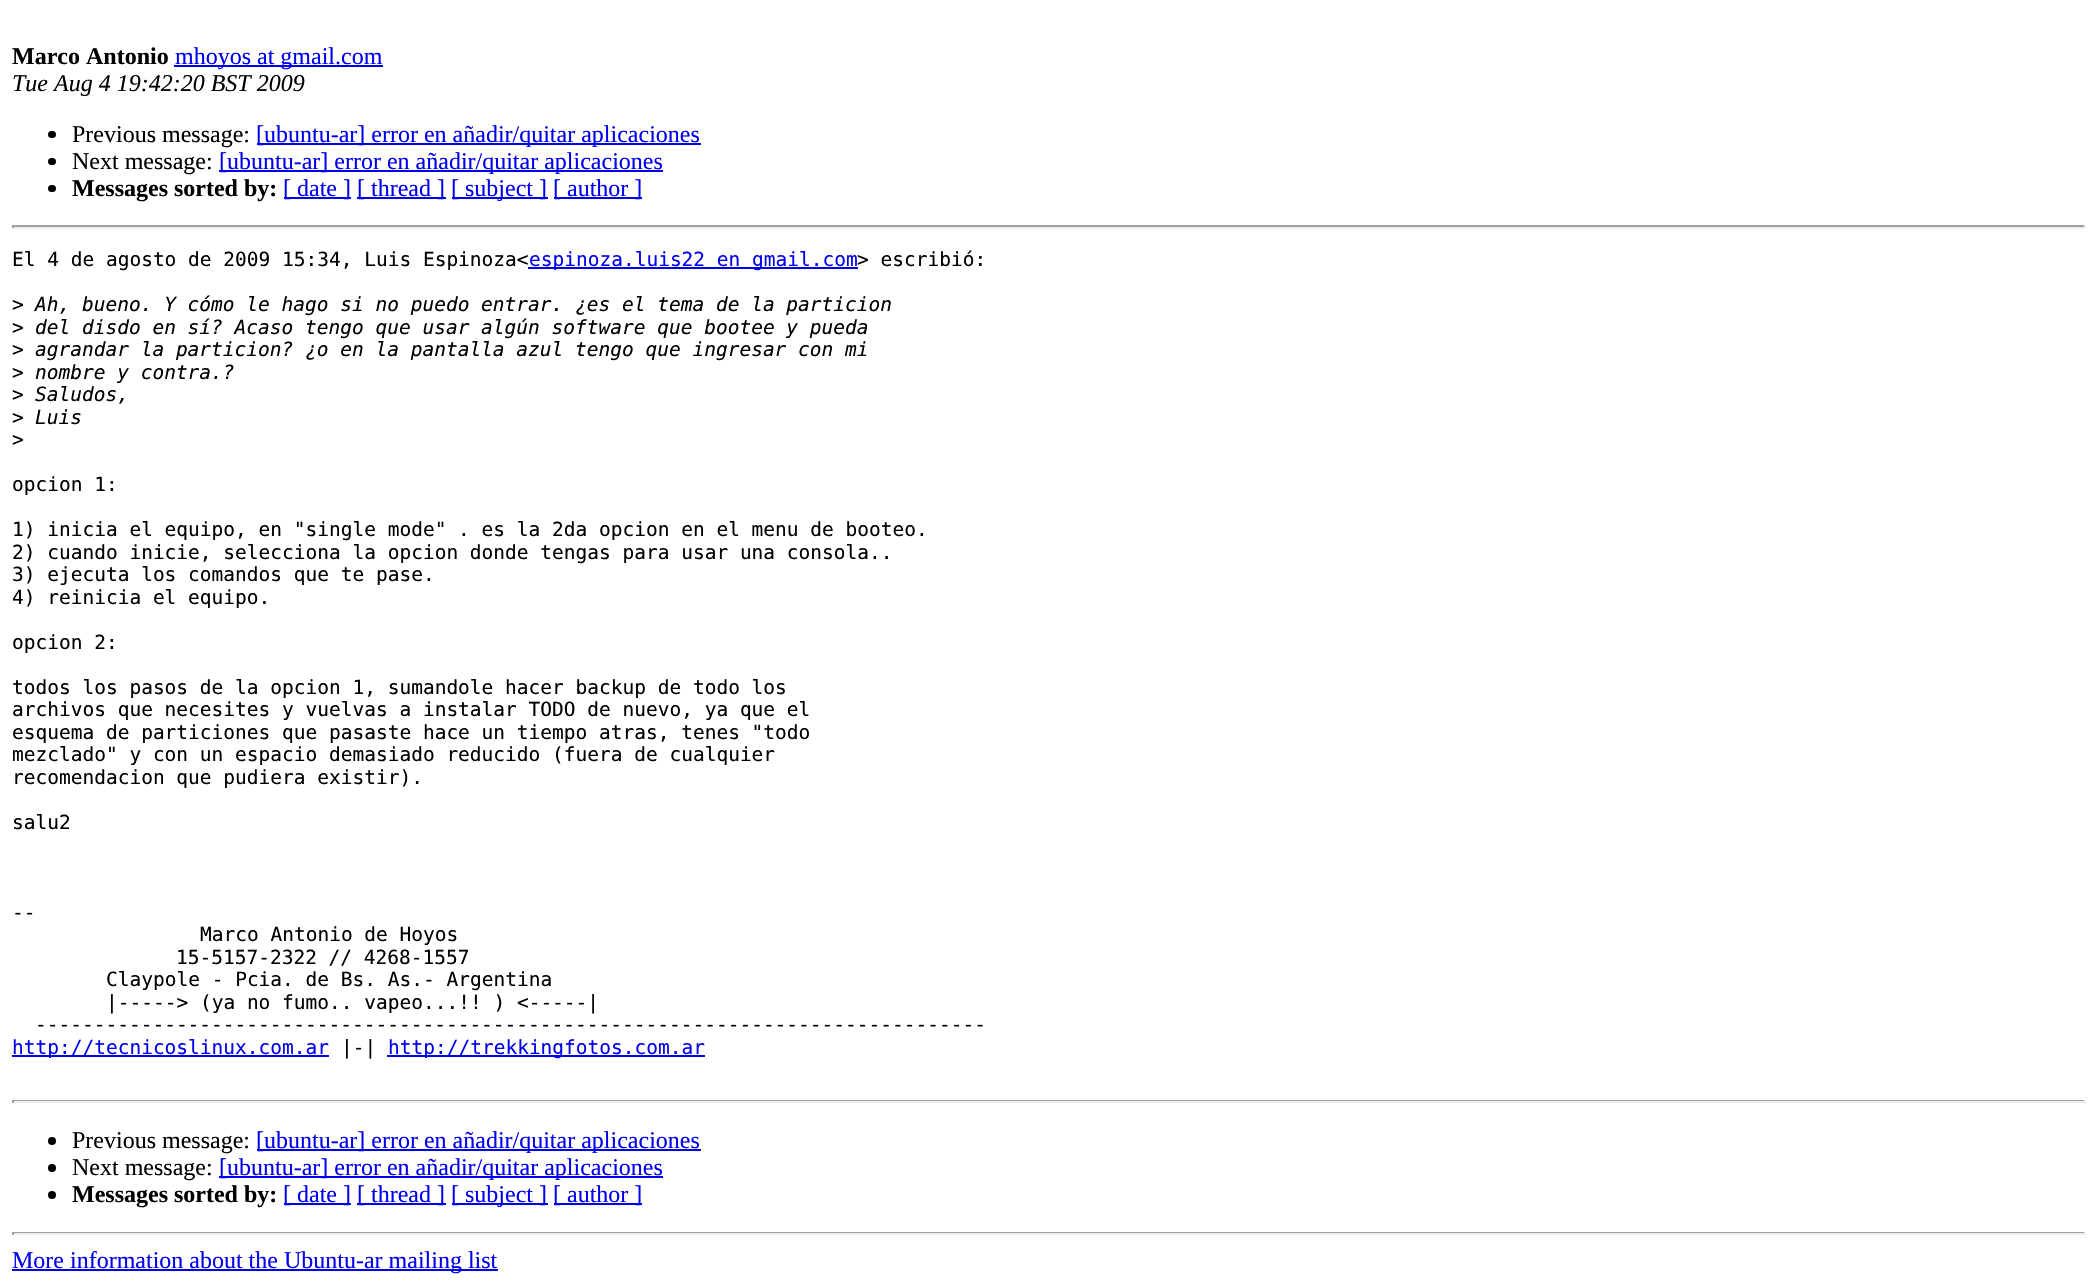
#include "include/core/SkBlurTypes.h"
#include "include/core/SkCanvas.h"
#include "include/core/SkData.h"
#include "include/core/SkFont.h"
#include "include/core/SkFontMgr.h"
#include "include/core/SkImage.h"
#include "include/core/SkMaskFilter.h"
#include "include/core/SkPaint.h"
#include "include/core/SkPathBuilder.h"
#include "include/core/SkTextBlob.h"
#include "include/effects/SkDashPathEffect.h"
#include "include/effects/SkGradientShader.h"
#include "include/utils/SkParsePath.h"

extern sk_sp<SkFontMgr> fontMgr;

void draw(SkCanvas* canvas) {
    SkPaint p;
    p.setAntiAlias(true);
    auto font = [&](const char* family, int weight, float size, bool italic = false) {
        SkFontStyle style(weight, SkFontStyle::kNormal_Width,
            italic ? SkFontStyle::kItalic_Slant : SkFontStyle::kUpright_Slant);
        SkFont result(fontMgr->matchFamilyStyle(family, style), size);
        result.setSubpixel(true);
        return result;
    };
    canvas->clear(0xFFFFFFFF);
    auto font1 = font("Liberation Serif", 700, 24);
    p.setColor(0xFF000000);
    canvas->drawString("Marco Antonio", 12, 64, font1, p);
    p.setColor(0xFF0000EE);
    canvas->drawRect(SkRect::MakeLTRB(174, 65, 383, 67), p);
    auto font2 = font("Liberation Serif", 400, 24);
    canvas->drawString("mhoyos at gmail.com", 175, 64, font2, p);
    auto font3 = font("Liberation Serif", 400, 24, true);
    p.setColor(0xFF000000);
    canvas->drawString("Tue Aug 4 19:42:20 BST 2009", 12, 91, font3, p);
    canvas->drawRoundRect(SkRect::MakeLTRB(48, 131, 56, 138), 3.5f, 3.5f, p);
    canvas->drawString("Previous message:", 72, 142, font2, p);
    p.setColor(0xFF0000EE);
    canvas->drawRect(SkRect::MakeLTRB(257, 143, 701, 145), p);
    canvas->drawString("[ubuntu-ar] error en añadir/quitar aplicaciones", 256, 142, font2, p);
    p.setColor(0xFF000000);
    canvas->drawRoundRect(SkRect::MakeLTRB(48, 158, 56, 165), 3.5f, 3.5f, p);
    canvas->drawString("Next message:", 72, 169, font2, p);
    p.setColor(0xFF0000EE);
    canvas->drawRect(SkRect::MakeLTRB(219, 170, 663, 172), p);
    canvas->drawString("[ubuntu-ar] error en añadir/quitar aplicaciones", 219, 169, font2, p);
    p.setColor(0xFF000000);
    canvas->drawRoundRect(SkRect::MakeLTRB(48, 185, 56, 192), 3.5f, 3.5f, p);
    canvas->drawString("Messages sorted by:", 72, 196, font1, p);
    p.setColor(0xFF0000EE);
    canvas->drawRect(SkRect::MakeLTRB(284, 197, 351, 199), p);
    canvas->drawString("[ date ]", 283, 196, font2, p);
    canvas->drawRect(SkRect::MakeLTRB(357, 197, 446, 199), p);
    canvas->drawString("[ thread ]", 357, 196, font2, p);
    canvas->drawRect(SkRect::MakeLTRB(452, 197, 548, 199), p);
    canvas->drawString("[ subject ]", 451, 196, font2, p);
    canvas->drawRect(SkRect::MakeLTRB(554, 197, 642, 199), p);
    canvas->drawString("[ author ]", 553, 196, font2, p);
    {
        const struct { float l, t, r, b; SkColor color; } items[] = {
            {12, 225, 2085, 227, 0xFF9F9F9F},
            {2084, 225, 2086, 228, 0xFFEEEEEE},
            {12, 227, 2085, 229, 0xFFEEEEEE},
            {12, 225, 14, 228, 0xFF9F9F9F},
        };
        for (auto [l, t, r, b, color] : items) {
            p.setColor(color);
            canvas->drawRect(SkRect::MakeLTRB(l, t, r, b), p);
        }
    }
    auto font4 = font("DejaVu Sans Mono", 400, 19.5f);
    p.setColor(0xFF000000);
    canvas->drawString("El 4 de agosto de 2009 15:34, Luis Espinoza<", 12, 266, font4, p);
    p.setColor(0xFF0000EE);
    canvas->drawRect(SkRect::MakeLTRB(528, 267, 858, 269), p);
    canvas->drawString("espinoza.luis22 en gmail.com", 529, 266, font4, p);
    p.setColor(0xFF000000);
    canvas->drawString("> escribió:", 857, 266, font4, p);
    canvas->drawString(">", 12, 311, font4, p);
    auto font5 = font("DejaVu Sans Mono", 400, 19.5f, true);
    canvas->drawString("Ah, bueno. Y cómo le hago si no puedo entrar. ¿es el tema de la particion", 35, 311, font5, p);
    canvas->drawString(">", 12, 334, font4, p);
    canvas->drawString("del disdo en sí? Acaso tengo que usar algún software que bootee y pueda", 35, 334, font5, p);
    canvas->drawString(">", 12, 356, font4, p);
    canvas->drawString("agrandar la particion? ¿o en la pantalla azul tengo que ingresar con mi", 35, 356, font5, p);
    canvas->drawString(">", 12, 379, font4, p);
    canvas->drawString("nombre y contra.?", 35, 379, font5, p);
    canvas->drawString(">", 12, 401, font4, p);
    canvas->drawString("Saludos,", 35, 401, font5, p);
    canvas->drawString(">", 12, 424, font4, p);
    canvas->drawString("Luis", 35, 424, font5, p);
    {
        const struct { const char* s; float x, y; } items[] = {
            {">", 12, 446},
            {"opcion 1:", 12, 491},
            {"1) inicia el equipo, en \"single mode\" . es la 2da opcion en el menu de booteo.", 12, 536},
            {"2) cuando inicie, selecciona la opcion donde tengas para usar una consola..", 12, 559},
            {"3) ejecuta los comandos que te pase.", 12, 581},
            {"4) reinicia el equipo.", 12, 604},
            {"opcion 2:", 12, 649},
            {"todos los pasos de la opcion 1, sumandole hacer backup de todo los", 12, 694},
            {"archivos que necesites y vuelvas a instalar TODO de nuevo, ya que el", 12, 716},
            {"esquema de particiones que pasaste hace un tiempo atras, tenes \"todo", 12, 739},
            {"mezclado\" y con un espacio demasiado reducido (fuera de cualquier", 12, 761},
            {"recomendacion que pudiera existir).", 12, 784},
            {"salu2", 12, 829},
            {"--", 12, 919},
            {"Marco Antonio de Hoyos", 200, 941},
            {"15-5157-2322 // 4268-1557", 176, 964},
            {"Claypole - Pcia. de Bs. As.- Argentina", 106, 986},
            {"|-----> (ya no fumo.. vapeo...!! ) <-----|", 106, 1009},
            {"---------------------------------------------------------------------------------", 35, 1031},
        };
        for (auto [s, x, y] : items) {
            canvas->drawString(s, x, y, font4, p);
        }
    }
    p.setColor(0xFF0000EE);
    canvas->drawRect(SkRect::MakeLTRB(12, 1055, 329, 1057), p);
    canvas->drawString("http://tecnicoslinux.com.ar", 12, 1054, font4, p);
    p.setColor(0xFF000000);
    canvas->drawString("|-|", 341, 1054, font4, p);
    p.setColor(0xFF0000EE);
    canvas->drawRect(SkRect::MakeLTRB(387, 1055, 705, 1057), p);
    canvas->drawString("http://trekkingfotos.com.ar", 388, 1054, font4, p);
    {
        const struct { float l, t, r, b; SkColor color; } items[] = {
            {12, 1100, 2085, 1101, 0xFF9F9F9F},
            {2084, 1100, 2086, 1103, 0xFFEEEEEE},
            {12, 1101, 2085, 1103, 0xFFEEEEEE},
            {12, 1100, 14, 1103, 0xFF9F9F9F},
        };
        for (auto [l, t, r, b, color] : items) {
            p.setColor(color);
            canvas->drawRect(SkRect::MakeLTRB(l, t, r, b), p);
        }
    }
    p.setColor(0xFF000000);
    canvas->drawCircle(52, 1141, 4, p);
    canvas->drawString("Previous message:", 72, 1148, font2, p);
    p.setColor(0xFF0000EE);
    canvas->drawRect(SkRect::MakeLTRB(257, 1149, 701, 1151), p);
    canvas->drawString("[ubuntu-ar] error en añadir/quitar aplicaciones", 256, 1148, font2, p);
    p.setColor(0xFF000000);
    canvas->drawCircle(52, 1168, 4, p);
    canvas->drawString("Next message:", 72, 1175, font2, p);
    p.setColor(0xFF0000EE);
    canvas->drawRect(SkRect::MakeLTRB(219, 1176, 663, 1178), p);
    canvas->drawString("[ubuntu-ar] error en añadir/quitar aplicaciones", 219, 1175, font2, p);
    p.setColor(0xFF000000);
    canvas->drawCircle(52, 1195, 4, p);
    canvas->drawString("Messages sorted by:", 72, 1202, font1, p);
    p.setColor(0xFF0000EE);
    canvas->drawRect(SkRect::MakeLTRB(284, 1203, 351, 1205), p);
    canvas->drawString("[ date ]", 283, 1202, font2, p);
    canvas->drawRect(SkRect::MakeLTRB(357, 1203, 446, 1205), p);
    canvas->drawString("[ thread ]", 357, 1202, font2, p);
    canvas->drawRect(SkRect::MakeLTRB(452, 1203, 548, 1205), p);
    canvas->drawString("[ subject ]", 451, 1202, font2, p);
    canvas->drawRect(SkRect::MakeLTRB(554, 1203, 642, 1205), p);
    canvas->drawString("[ author ]", 553, 1202, font2, p);
    {
        const struct { float l, t, r, b; SkColor color; } items[] = {
            {12, 1232, 2085, 1233, 0xFF9F9F9F},
            {2084, 1232, 2086, 1235, 0xFFEEEEEE},
            {12, 1233, 2085, 1235, 0xFFEEEEEE},
            {12, 1232, 14, 1235, 0xFF9F9F9F},
            {12, 1269, 498, 1271, 0xFF0000EE},
        };
        for (auto [l, t, r, b, color] : items) {
            p.setColor(color);
            canvas->drawRect(SkRect::MakeLTRB(l, t, r, b), p);
        }
    }
    canvas->drawString("More information about the Ubuntu-ar mailing list", 12, 1268, font2, p);
}
